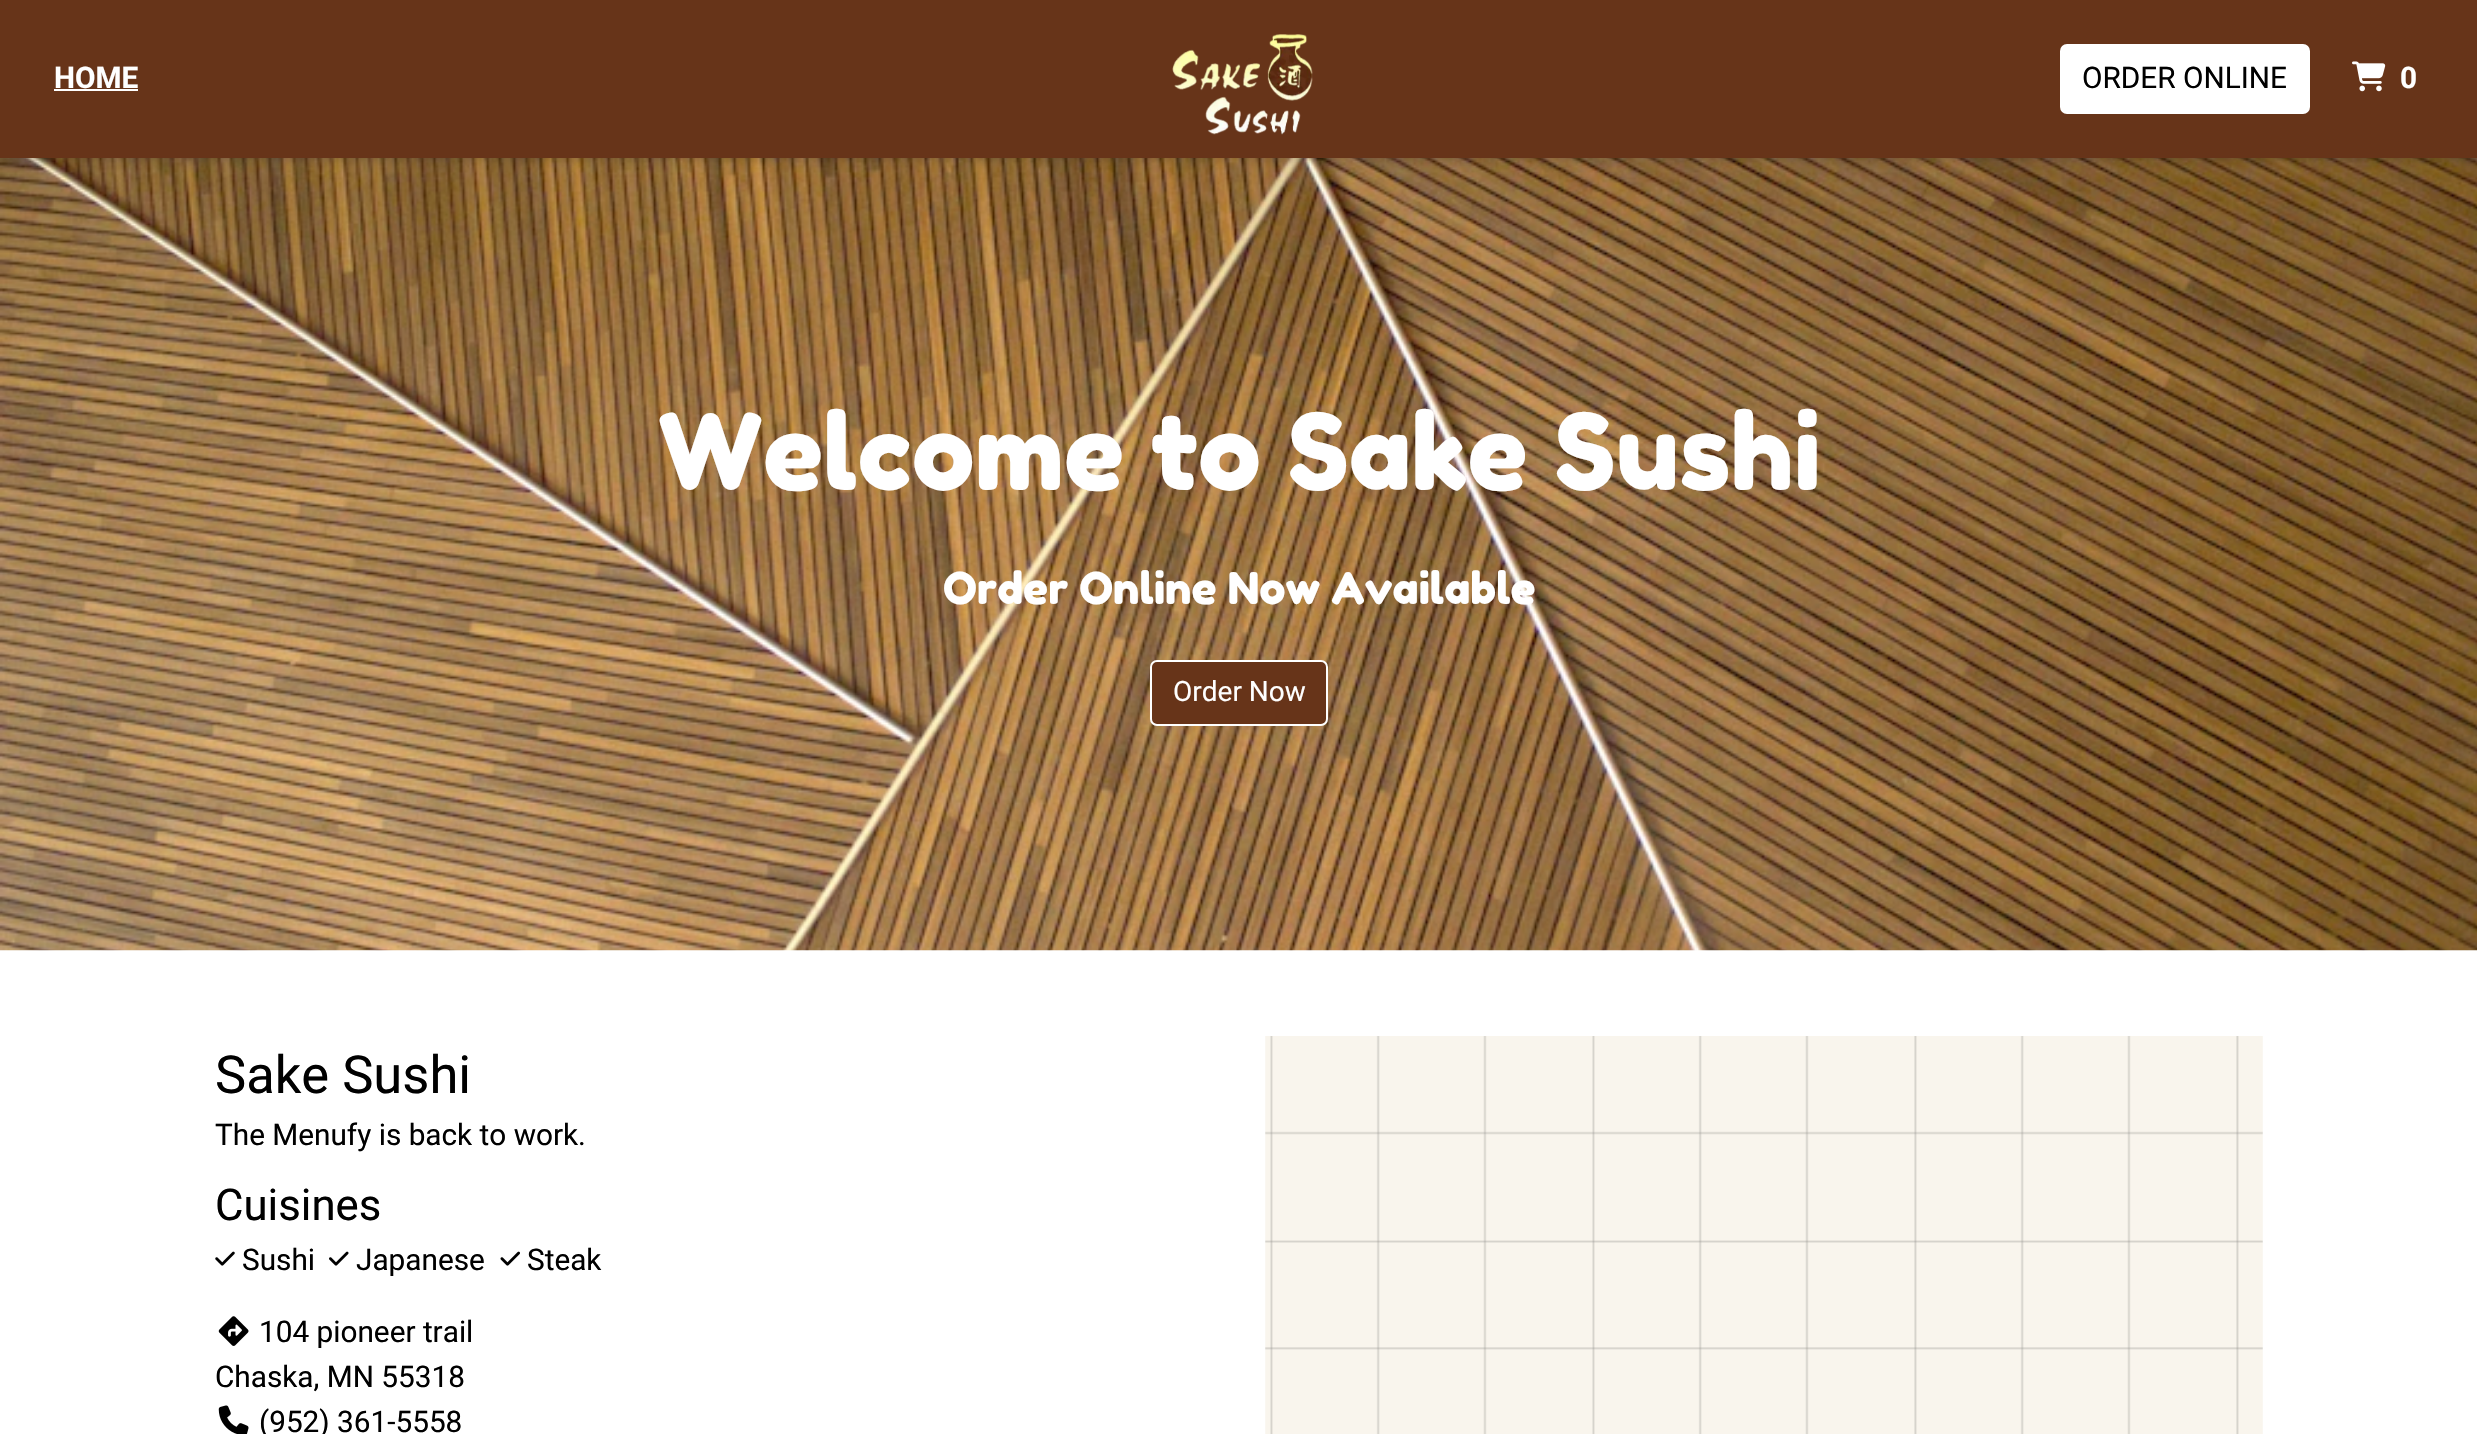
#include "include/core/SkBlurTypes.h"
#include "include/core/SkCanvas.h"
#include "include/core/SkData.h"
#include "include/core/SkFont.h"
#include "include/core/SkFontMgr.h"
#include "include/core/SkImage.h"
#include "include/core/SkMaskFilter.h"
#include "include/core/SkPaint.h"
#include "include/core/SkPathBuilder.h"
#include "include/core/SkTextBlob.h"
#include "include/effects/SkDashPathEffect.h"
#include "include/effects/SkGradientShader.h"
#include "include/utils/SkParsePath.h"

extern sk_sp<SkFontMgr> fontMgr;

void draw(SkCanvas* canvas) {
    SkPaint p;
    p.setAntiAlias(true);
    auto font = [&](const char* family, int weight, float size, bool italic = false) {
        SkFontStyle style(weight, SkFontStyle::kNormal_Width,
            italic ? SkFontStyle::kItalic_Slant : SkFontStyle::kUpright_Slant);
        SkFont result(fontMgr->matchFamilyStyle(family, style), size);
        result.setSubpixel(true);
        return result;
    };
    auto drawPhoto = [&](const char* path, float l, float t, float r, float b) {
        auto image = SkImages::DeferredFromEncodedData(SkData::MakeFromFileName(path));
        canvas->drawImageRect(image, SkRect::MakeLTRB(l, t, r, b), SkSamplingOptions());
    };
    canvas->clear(0xFFFFFFFF);
    drawPhoto("media/3.png", 0, 158, 2477, 951);
    p.setColor(0x47202124);
    p.setMaskFilter(SkMaskFilter::MakeBlur(kNormal_SkBlurStyle, 5));
    canvas->drawRect(SkRect::MakeLTRB(0, 2, 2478, 159), p);
    p.setMaskFilter(nullptr);
    p.setColor(0xFF673419);
    canvas->drawRect(SkRect::MakeLTRB(0, 0, 2477, 158), p);
    auto font1 = font("Roboto", 700, 29.75f);
    p.setColor(0xFFFFFFFF);
    canvas->drawString("HOME", 54, 88, font1, p);
    canvas->drawRect(SkRect::MakeLTRB(54, 89, 138, 91), p);
    drawPhoto("media/1.png", 1172, 34, 1313, 135);
    canvas->drawRoundRect(SkRect::MakeLTRB(2060, 44, 2310, 114), 7, 7, p);
    auto font2 = font("Roboto", 400, 29.75f);
    p.setColor(0xFF000000);
    canvas->drawString("ORDER ONLINE", 2082, 88, font2, p);
    drawPhoto("media/2.png", 2352, 61, 2386, 92);
    p.setColor(0xFFFFFFFF);
    canvas->drawString("0", 2400, 88, font1, p);
    auto font3 = font("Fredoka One", 400, 105);
    canvas->drawString("Welcome to Sake Sushi", 658, 490, font3, p);
    auto font4 = font("Fredoka One", 400, 43.75f);
    canvas->drawString("Order Online Now Available", 943, 604, font4, p);
    p.setColor(0xFF673419);
    canvas->drawRoundRect(SkRect::MakeLTRB(1151, 661, 1327, 725), 6, 6, p);
    p.setStyle(SkPaint::kStroke_Style);
    p.setStrokeWidth(2);
    p.setColor(0xFFFFFFFF);
    canvas->drawRoundRect(SkRect::MakeLTRB(1151, 661, 1327, 725), 6, 6, p);
    auto font5 = font("Roboto", 400, 28);
    p.setStyle(SkPaint::kFill_Style);
    canvas->drawString("Order Now", 1173, 701, font5, p);
    auto font6 = font("Roboto", 400, 52.5f);
    p.setColor(0xFF000000);
    canvas->drawString("Sake Sushi", 215, 1093, font6, p);
    canvas->drawString("The Menufy is back to work.", 215, 1145, font2, p);
    auto font7 = font("Roboto", 400, 43.75f);
    canvas->drawString("Cuisines", 215, 1220, font7, p);
    drawPhoto("media/4.png", 215, 1251, 235, 1266);
    canvas->drawString("Sushi", 242, 1270, font2, p);
    drawPhoto("media/5.png", 329, 1251, 349, 1266);
    canvas->drawString("Japanese", 356, 1270, font2, p);
    drawPhoto("media/6.png", 500, 1251, 520, 1266);
    canvas->drawString("Steak", 527, 1270, font2, p);
    drawPhoto("media/7.png", 218, 1316, 249, 1346);
    canvas->drawString("104 pioneer trail", 259, 1342, font2, p);
    canvas->drawString("Chaska, MN 55318", 215, 1387, font2, p);
    drawPhoto("media/8.png", 218, 1405, 249, 1434);
    canvas->drawString("(952) 361-5558", 259, 1432, font2, p);
    drawPhoto("media/9.png", 1265, 1036, 2263, 1434);
}
